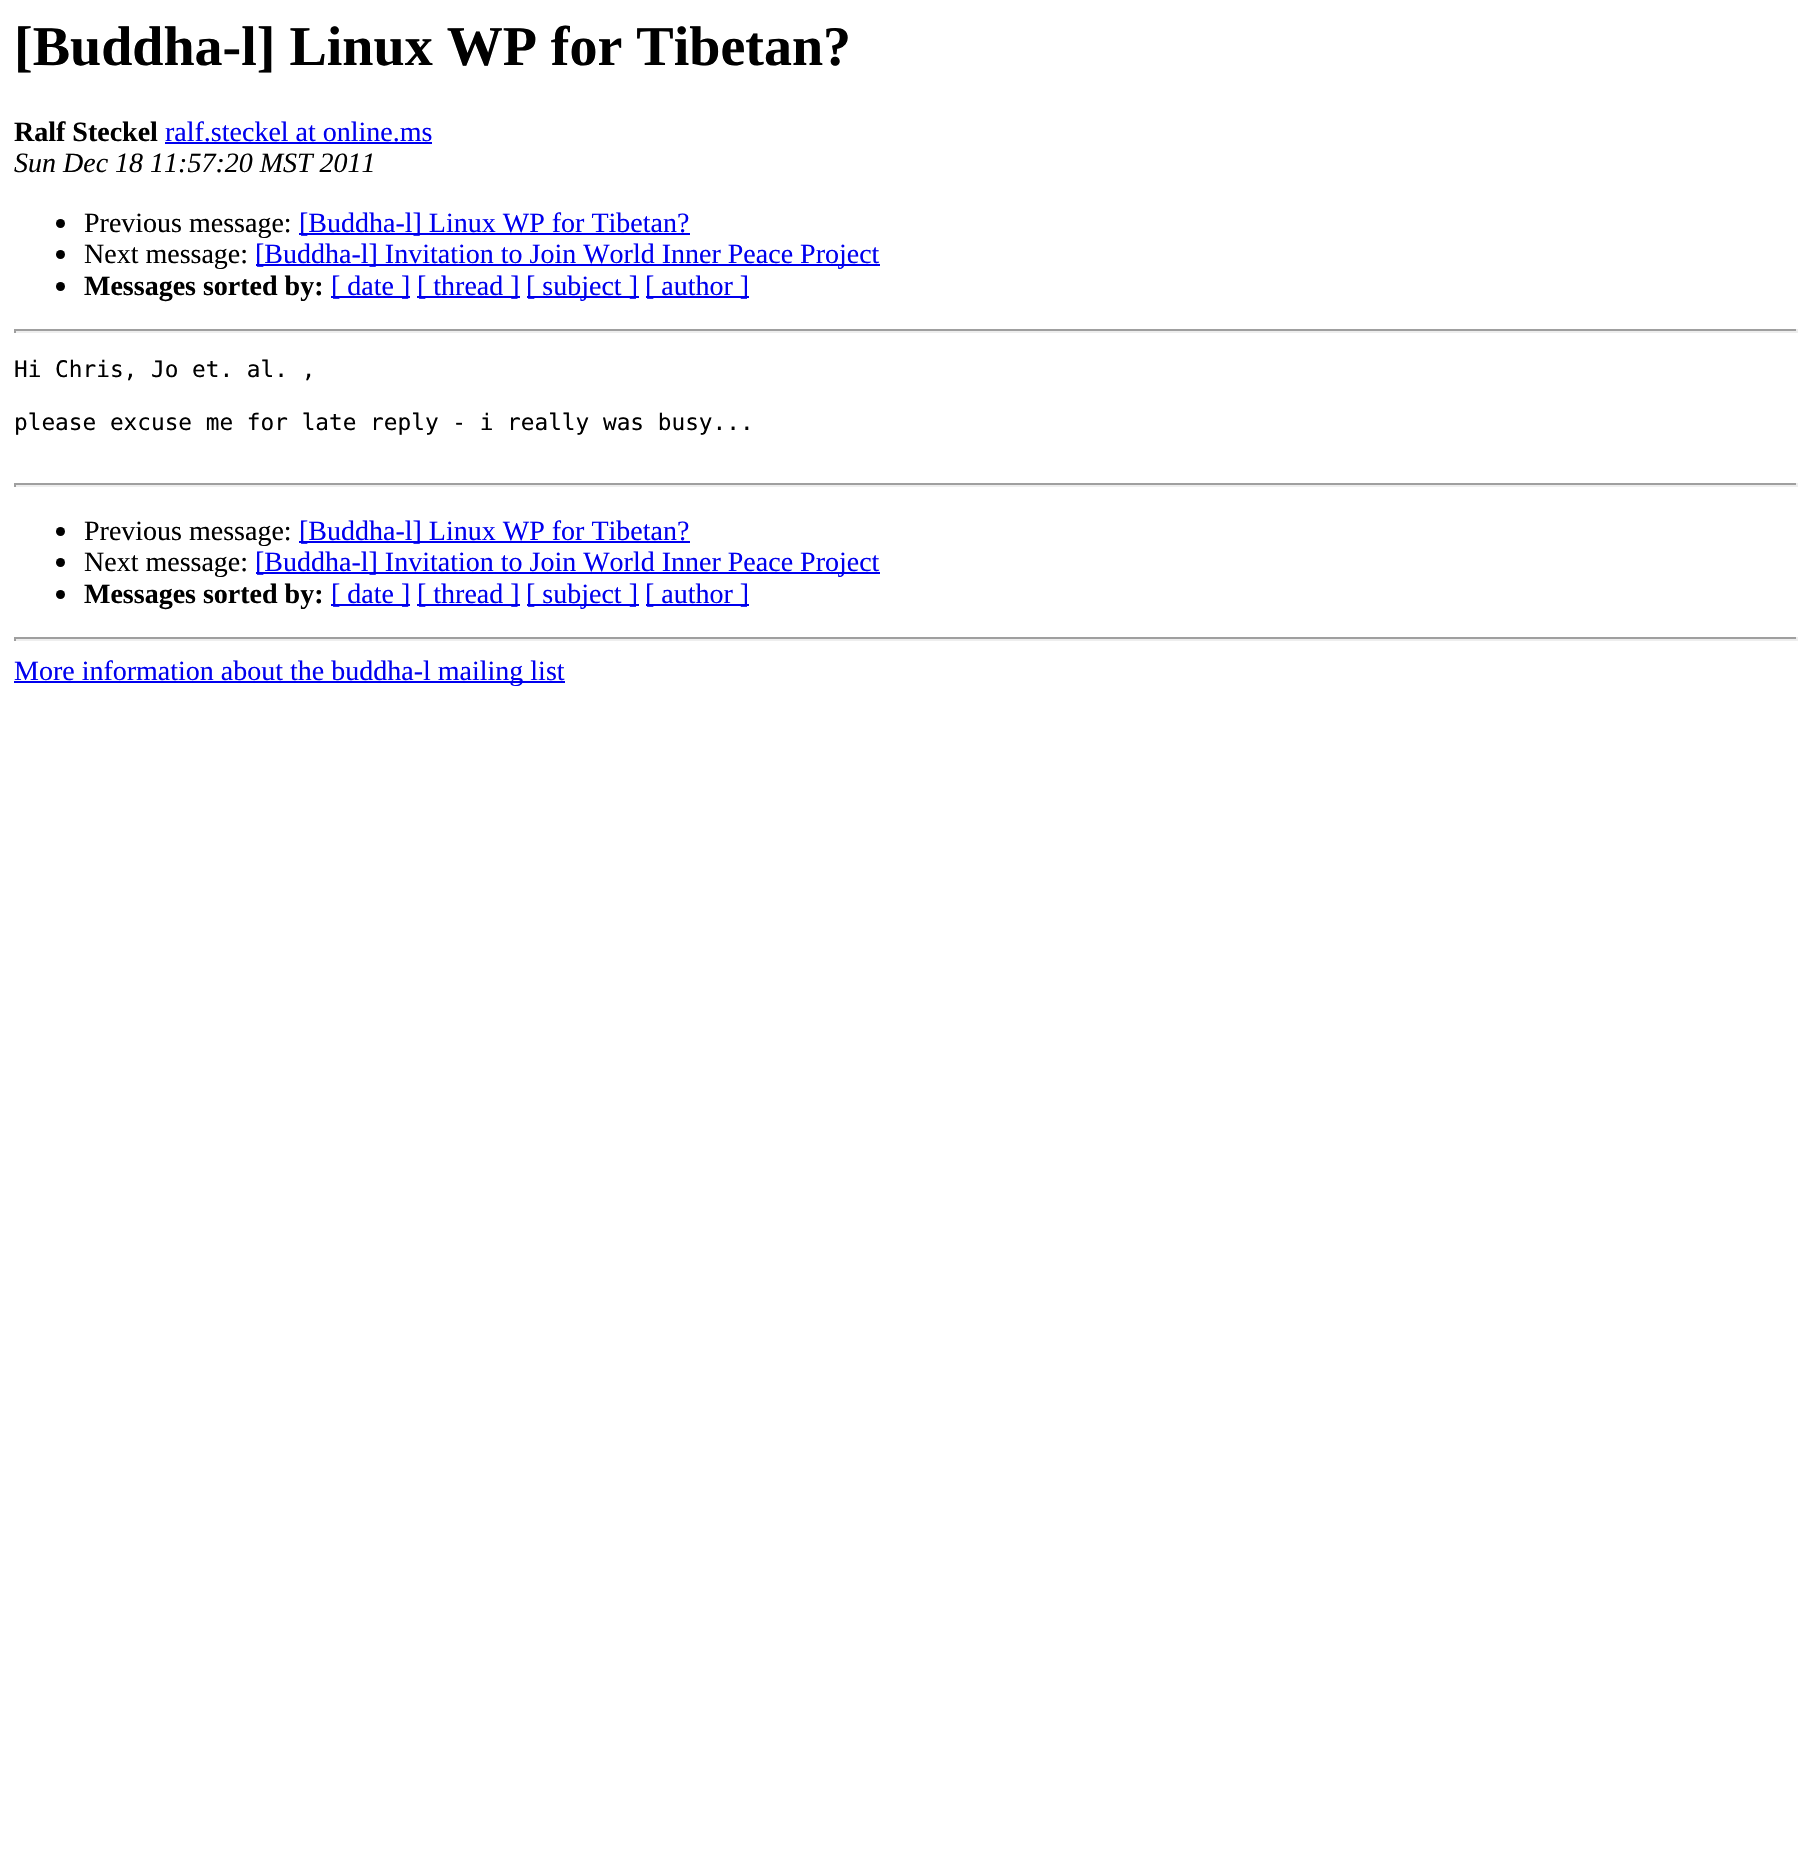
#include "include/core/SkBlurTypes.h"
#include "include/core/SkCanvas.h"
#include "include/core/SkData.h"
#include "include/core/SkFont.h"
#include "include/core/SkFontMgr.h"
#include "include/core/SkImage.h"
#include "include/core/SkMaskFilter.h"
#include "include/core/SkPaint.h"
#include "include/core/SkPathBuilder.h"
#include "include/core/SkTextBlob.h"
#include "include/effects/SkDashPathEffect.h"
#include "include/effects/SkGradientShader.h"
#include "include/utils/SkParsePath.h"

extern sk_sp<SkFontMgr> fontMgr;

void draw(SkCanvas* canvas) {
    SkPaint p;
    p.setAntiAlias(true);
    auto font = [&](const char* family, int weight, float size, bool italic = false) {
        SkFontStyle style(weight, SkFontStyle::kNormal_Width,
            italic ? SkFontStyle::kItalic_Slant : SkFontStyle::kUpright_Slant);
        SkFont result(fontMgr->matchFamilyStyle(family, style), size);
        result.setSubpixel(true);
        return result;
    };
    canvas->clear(0xFFFFFFFF);
    auto font1 = font("Liberation Serif", 700, 56);
    p.setColor(0xFF000000);
    canvas->drawString("[Buddha-l] Linux WP for Tibetan?", 14, 65, font1, p);
    auto font2 = font("Liberation Serif", 700, 28);
    canvas->drawString("Ralf Steckel", 14, 141, font2, p);
    auto font3 = font("Liberation Serif", 400, 28);
    p.setColor(0xFF0000EE);
    canvas->drawString("ralf.steckel at online.ms", 165, 141, font3, p);
    canvas->drawRect(SkRect::MakeLTRB(165, 142, 432, 144), p);
    auto font4 = font("Liberation Serif", 400, 28, true);
    p.setColor(0xFF000000);
    canvas->drawString("Sun Dec 18 11:57:20 MST 2011", 14, 172, font4, p);
    canvas->drawCircle(60.5f, 223.5f, 4.5f, p);
    canvas->drawString("Previous message:", 84, 232, font3, p);
    p.setColor(0xFF0000EE);
    canvas->drawRect(SkRect::MakeLTRB(299, 233, 690, 235), p);
    canvas->drawString("[Buddha-l] Linux WP for Tibetan?", 299, 232, font3, p);
    p.setColor(0xFF000000);
    canvas->drawCircle(60.5f, 254.5f, 4.5f, p);
    canvas->drawString("Next message:", 84, 263, font3, p);
    p.setColor(0xFF0000EE);
    canvas->drawRect(SkRect::MakeLTRB(256, 264, 880, 266), p);
    canvas->drawString("[Buddha-l] Invitation to Join World Inner Peace Project", 255, 263, font3, p);
    p.setColor(0xFF000000);
    canvas->drawCircle(60.5f, 286.5f, 4.5f, p);
    canvas->drawString("Messages sorted by:", 84, 295, font2, p);
    p.setColor(0xFF0000EE);
    canvas->drawRect(SkRect::MakeLTRB(331, 296, 410, 298), p);
    canvas->drawString("[ date ]", 331, 295, font3, p);
    canvas->drawRect(SkRect::MakeLTRB(417, 296, 520, 298), p);
    canvas->drawString("[ thread ]", 417, 295, font3, p);
    canvas->drawRect(SkRect::MakeLTRB(527, 296, 639, 298), p);
    canvas->drawString("[ subject ]", 526, 295, font3, p);
    canvas->drawRect(SkRect::MakeLTRB(646, 296, 749, 298), p);
    canvas->drawString("[ author ]", 645, 295, font3, p);
    {
        const struct { float l, t, r, b; SkColor color; } items[] = {
            {14, 329, 1797, 331, 0xFF9F9F9F},
            {1796, 329, 1798, 333, 0xFFEEEEEE},
            {14, 331, 1797, 333, 0xFFEEEEEE},
            {14, 329, 16, 333, 0xFF9F9F9F},
        };
        for (auto [l, t, r, b, color] : items) {
            p.setColor(color);
            canvas->drawRect(SkRect::MakeLTRB(l, t, r, b), p);
        }
    }
    auto font5 = font("DejaVu Sans Mono", 400, 22.75f);
    p.setColor(0xFF000000);
    canvas->drawString("Hi Chris, Jo et. al. ,", 14, 377, font5, p);
    canvas->drawString("please excuse me for late reply - i really was busy...", 14, 430, font5, p);
    {
        const struct { float l, t, r, b; SkColor color; } items[] = {
            {14, 483, 1797, 485, 0xFF9F9F9F},
            {1796, 483, 1798, 487, 0xFFEEEEEE},
            {14, 485, 1797, 487, 0xFFEEEEEE},
            {14, 483, 16, 487, 0xFF9F9F9F},
        };
        for (auto [l, t, r, b, color] : items) {
            p.setColor(color);
            canvas->drawRect(SkRect::MakeLTRB(l, t, r, b), p);
        }
    }
    p.setColor(0xFF000000);
    canvas->drawCircle(60.5f, 531.5f, 4.5f, p);
    canvas->drawString("Previous message:", 84, 540, font3, p);
    p.setColor(0xFF0000EE);
    canvas->drawRect(SkRect::MakeLTRB(299, 541, 690, 543), p);
    canvas->drawString("[Buddha-l] Linux WP for Tibetan?", 299, 540, font3, p);
    p.setColor(0xFF000000);
    canvas->drawCircle(60.5f, 562.5f, 4.5f, p);
    canvas->drawString("Next message:", 84, 571, font3, p);
    p.setColor(0xFF0000EE);
    canvas->drawRect(SkRect::MakeLTRB(256, 572, 880, 574), p);
    canvas->drawString("[Buddha-l] Invitation to Join World Inner Peace Project", 255, 571, font3, p);
    p.setColor(0xFF000000);
    canvas->drawCircle(60.5f, 594.5f, 4.5f, p);
    canvas->drawString("Messages sorted by:", 84, 603, font2, p);
    p.setColor(0xFF0000EE);
    canvas->drawRect(SkRect::MakeLTRB(331, 604, 410, 606), p);
    canvas->drawString("[ date ]", 331, 603, font3, p);
    canvas->drawRect(SkRect::MakeLTRB(417, 604, 520, 606), p);
    canvas->drawString("[ thread ]", 417, 603, font3, p);
    canvas->drawRect(SkRect::MakeLTRB(527, 604, 639, 606), p);
    canvas->drawString("[ subject ]", 526, 603, font3, p);
    canvas->drawRect(SkRect::MakeLTRB(646, 604, 749, 606), p);
    canvas->drawString("[ author ]", 645, 603, font3, p);
    {
        const struct { float l, t, r, b; SkColor color; } items[] = {
            {14, 637, 1797, 639, 0xFF9F9F9F},
            {1796, 637, 1798, 641, 0xFFEEEEEE},
            {14, 639, 1797, 641, 0xFFEEEEEE},
            {14, 637, 16, 641, 0xFF9F9F9F},
            {14, 681, 565, 683, 0xFF0000EE},
        };
        for (auto [l, t, r, b, color] : items) {
            p.setColor(color);
            canvas->drawRect(SkRect::MakeLTRB(l, t, r, b), p);
        }
    }
    canvas->drawString("More information about the buddha-l mailing list", 14, 680, font3, p);
}
